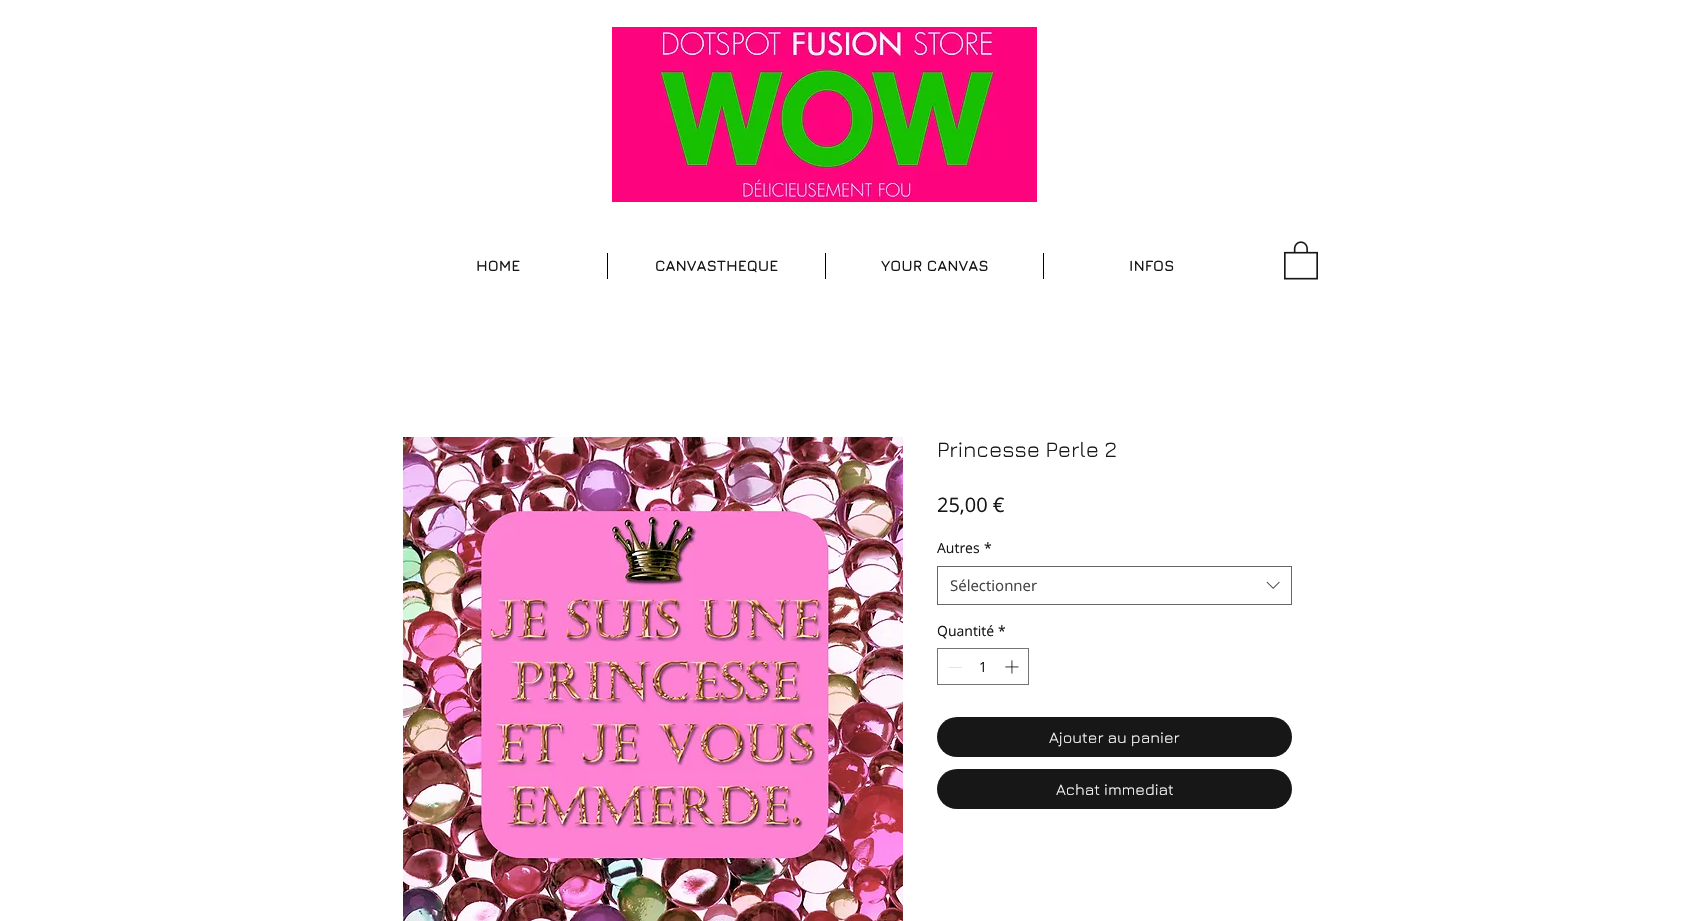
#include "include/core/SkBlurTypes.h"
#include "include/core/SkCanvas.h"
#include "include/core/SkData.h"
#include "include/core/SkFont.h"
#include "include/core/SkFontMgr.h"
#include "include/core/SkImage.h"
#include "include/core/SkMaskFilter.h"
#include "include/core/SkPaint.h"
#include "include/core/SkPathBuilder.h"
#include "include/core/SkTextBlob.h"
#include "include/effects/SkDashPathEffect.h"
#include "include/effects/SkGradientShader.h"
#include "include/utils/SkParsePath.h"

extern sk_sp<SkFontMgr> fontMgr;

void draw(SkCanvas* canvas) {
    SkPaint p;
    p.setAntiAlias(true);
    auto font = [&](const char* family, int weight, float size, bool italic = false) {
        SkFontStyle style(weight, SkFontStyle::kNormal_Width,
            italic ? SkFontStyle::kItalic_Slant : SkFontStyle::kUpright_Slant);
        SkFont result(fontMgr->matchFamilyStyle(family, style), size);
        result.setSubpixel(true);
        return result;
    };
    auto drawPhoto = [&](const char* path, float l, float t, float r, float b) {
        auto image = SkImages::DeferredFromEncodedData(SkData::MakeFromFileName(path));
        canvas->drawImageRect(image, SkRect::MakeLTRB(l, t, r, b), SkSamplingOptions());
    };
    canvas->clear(0xFFFFFFFF);
    drawPhoto("media/1.png", 612, 27, 1037, 202);
    auto font1 = font("Jura", 700, 15);
    p.setColor(0xFF181717);
    canvas->drawString("HOME", 476, 271, font1, p);
    p.setColor(0xFF000000);
    canvas->drawRect(SkRect::MakeLTRB(607, 253, 608, 279), p);
    p.setColor(0xFF181717);
    canvas->drawString("CANVASTHEQUE", 655, 271, font1, p);
    p.setColor(0xFF000000);
    canvas->drawRect(SkRect::MakeLTRB(825, 253, 826, 279), p);
    p.setColor(0xFF181717);
    canvas->drawString("YOUR CANVAS", 881, 271, font1, p);
    p.setColor(0xFF000000);
    canvas->drawRect(SkRect::MakeLTRB(1043, 253, 1044, 279), p);
    p.setColor(0xFF181717);
    canvas->drawString("INFOS", 1129, 271, font1, p);
    drawPhoto("media/2.png", 1284, 241, 1318, 280);
    drawPhoto("media/3.png", 403, 437, 903, 921);
    auto font2 = font("Jura", 400, 22);
    canvas->drawString("Princesse Perle 2", 937, 457, font2, p);
    auto font3 = font("Open Sans", 400, 20);
    canvas->drawString("25,00 €", 937, 512, font3, p);
    auto font4 = font("Open Sans", 400, 14);
    canvas->drawString("Autres", 937, 553, font4, p);
    canvas->drawString("*", 984, 553, font4, p);
    p.setStyle(SkPaint::kStroke_Style);
    p.setStrokeWidth(1);
    p.setColor(0xFF666666);
    canvas->drawRect(SkRect::MakeLTRB(937.5f, 566.5f, 1291.5f, 604.5f), p);
    auto font5 = font("Open Sans", 400, 15);
    p.setStyle(SkPaint::kFill_Style);
    p.setColor(0xFF444444);
    canvas->drawString("Sélectionner", 950, 591, font5, p);
    drawPhoto("media/4.png", 1266, 581, 1280, 589);
    p.setColor(0xFF181717);
    canvas->drawString("Quantité", 937, 636, font4, p);
    canvas->drawString("*", 998, 636, font4, p);
    p.setStyle(SkPaint::kStroke_Style);
    p.setColor(0xFF747474);
    canvas->drawRect(SkRect::MakeLTRB(937.5f, 648.5f, 1028.5f, 684.5f), p);
    p.setStyle(SkPaint::kFill_Style);
    p.setColor(0xFFE3E3E3);
    canvas->drawRect(SkRect::MakeLTRB(949, 667, 962, 668), p);
    p.setColor(0xFF181717);
    canvas->drawString("1", 979, 672, font4, p);
    drawPhoto("media/5.png", 1005, 660, 1019, 674);
    canvas->drawRoundRect(SkRect::MakeLTRB(937, 717, 1292, 757), 20, 20, p);
    auto font6 = font("Jura", 400, 16);
    p.setColor(0xFFFFFFFF);
    canvas->drawString("Ajouter au panier", 1049, 743, font6, p);
    p.setColor(0xFF181717);
    canvas->drawRoundRect(SkRect::MakeLTRB(937, 769, 1292, 809), 20, 20, p);
    p.setColor(0xFFFFFFFF);
    canvas->drawString("Achat immediat", 1056, 795, font6, p);
}
